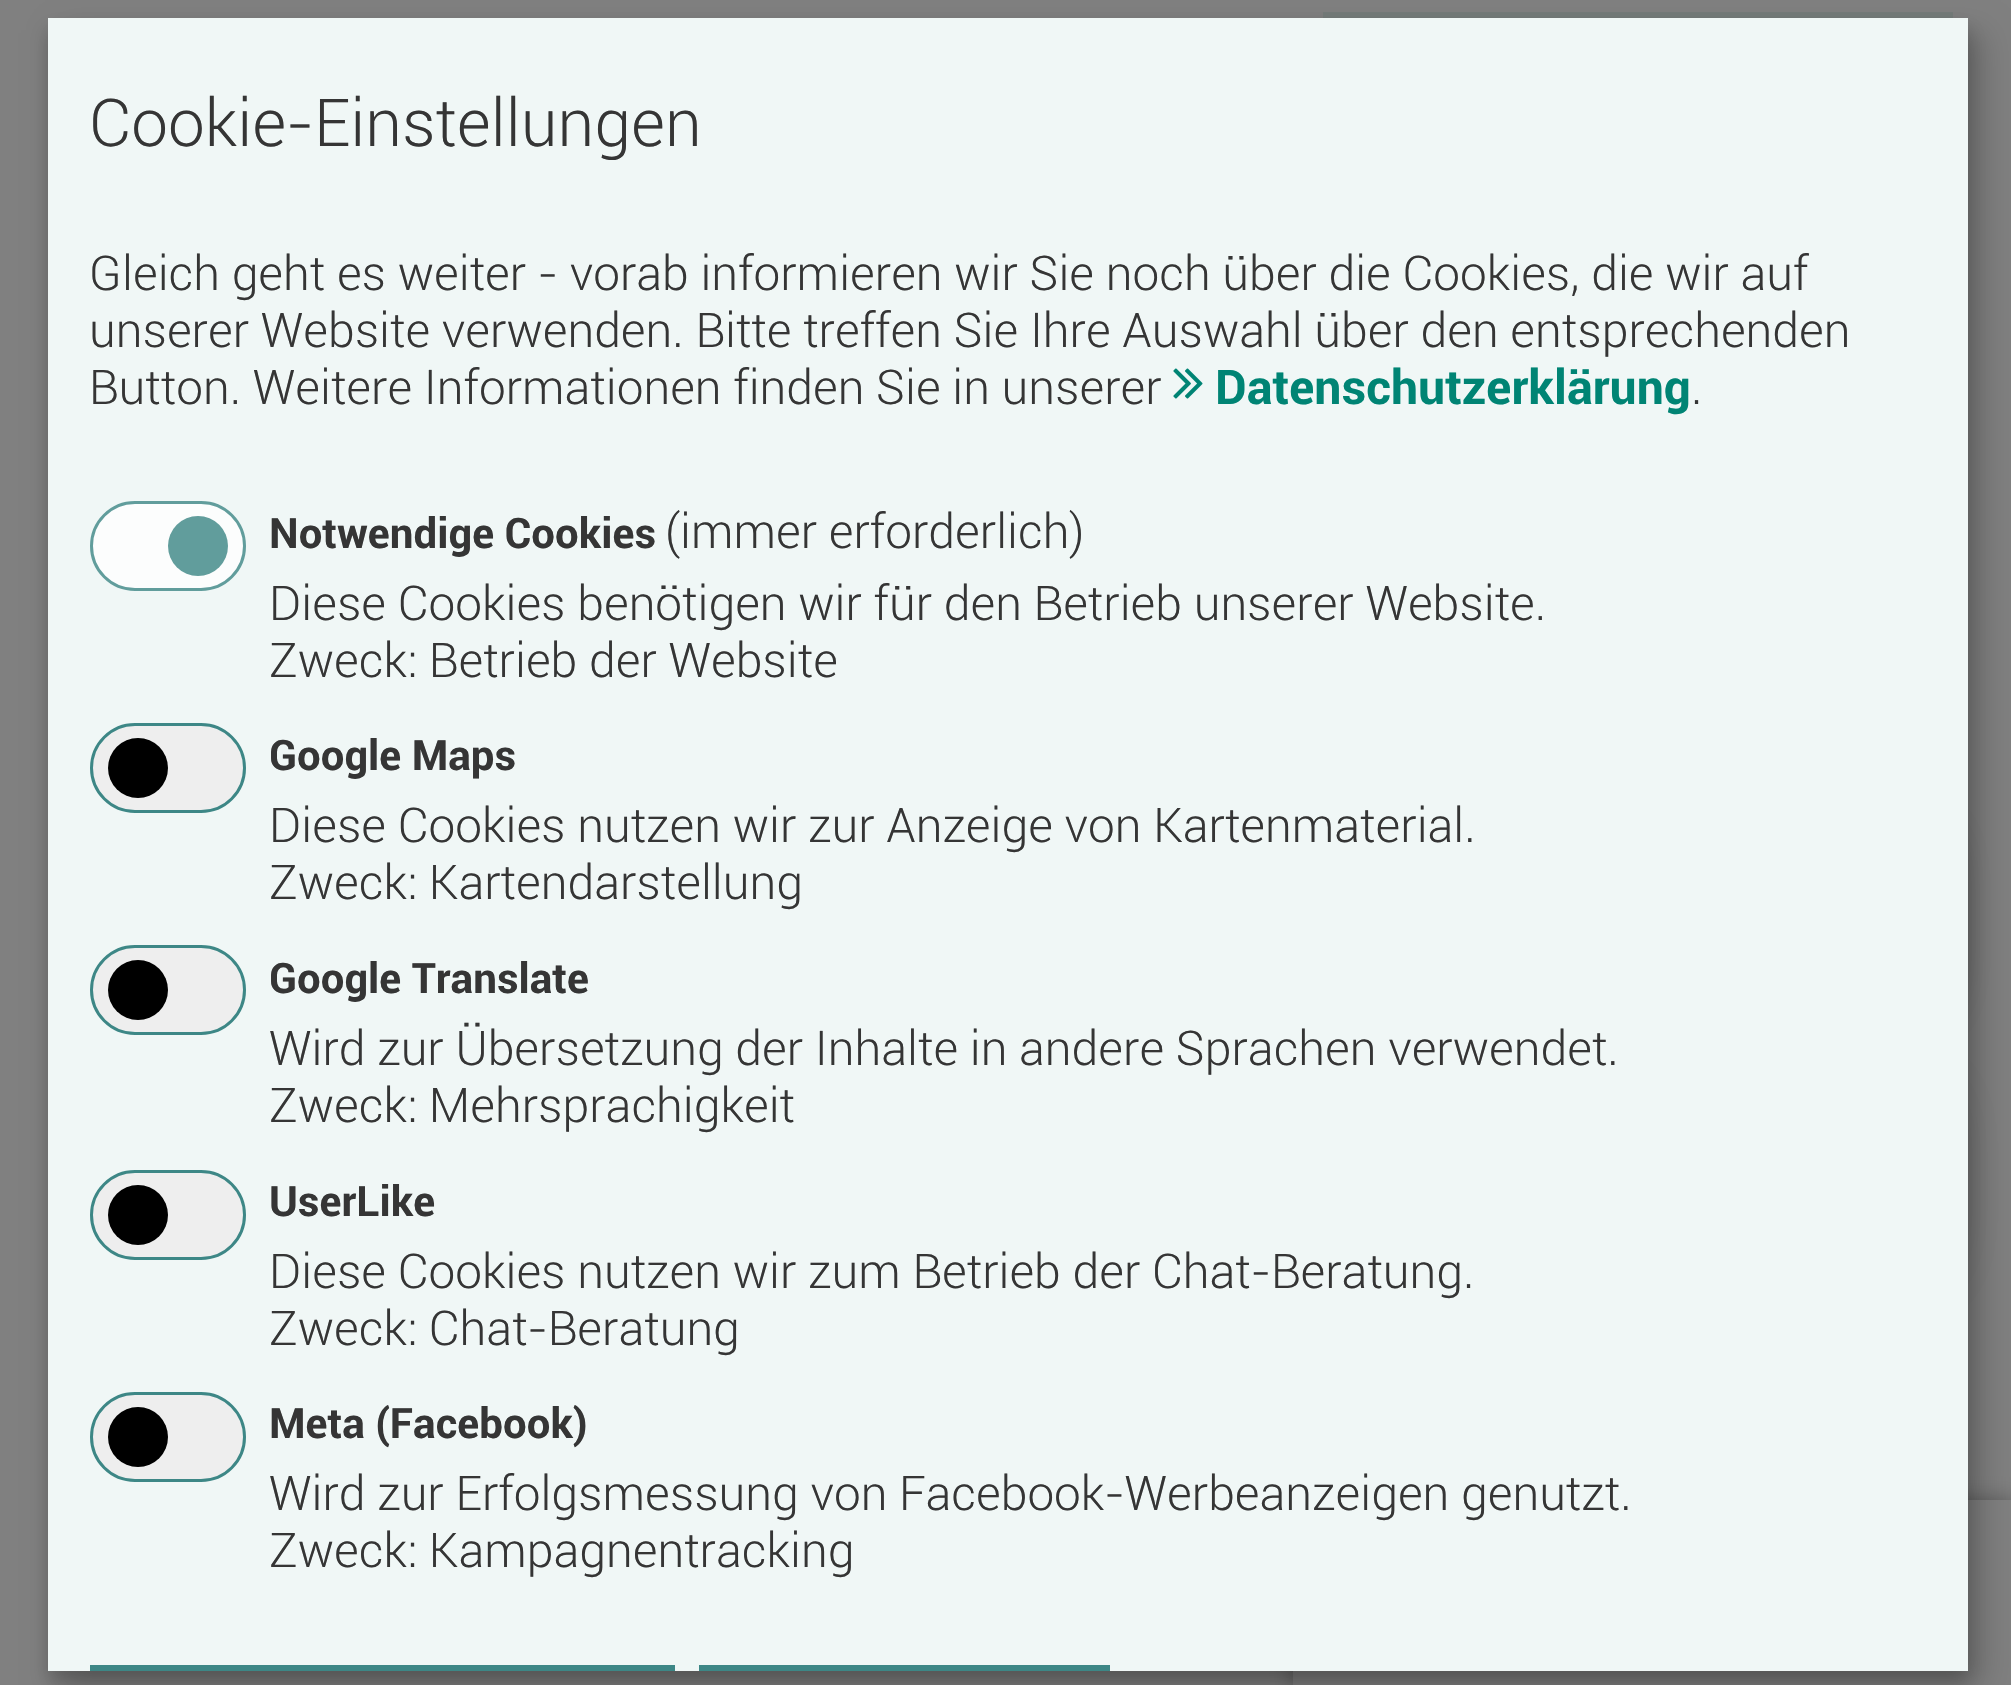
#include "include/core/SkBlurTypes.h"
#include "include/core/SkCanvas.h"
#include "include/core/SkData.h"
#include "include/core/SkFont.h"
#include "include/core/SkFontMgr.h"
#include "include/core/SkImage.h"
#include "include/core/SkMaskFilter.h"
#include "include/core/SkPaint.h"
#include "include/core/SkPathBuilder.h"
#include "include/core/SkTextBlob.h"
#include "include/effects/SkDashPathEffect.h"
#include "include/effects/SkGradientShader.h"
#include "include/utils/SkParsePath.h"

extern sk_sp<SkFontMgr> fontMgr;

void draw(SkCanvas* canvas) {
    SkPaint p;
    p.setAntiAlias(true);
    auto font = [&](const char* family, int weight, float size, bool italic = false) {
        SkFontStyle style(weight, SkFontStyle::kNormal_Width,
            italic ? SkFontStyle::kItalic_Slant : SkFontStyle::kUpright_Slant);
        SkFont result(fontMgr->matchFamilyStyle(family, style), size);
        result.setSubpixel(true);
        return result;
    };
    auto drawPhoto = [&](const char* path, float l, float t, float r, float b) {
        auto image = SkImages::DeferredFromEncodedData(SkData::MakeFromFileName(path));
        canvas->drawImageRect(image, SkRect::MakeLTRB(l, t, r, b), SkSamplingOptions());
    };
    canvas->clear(0xFF808080);
    p.setColor(0xFF757C7A);
    canvas->drawRect(SkRect::MakeLTRB(1323, 12, 1953, 18), p);
    p.setColor(0xFF4D4D4D);
    p.setMaskFilter(SkMaskFilter::MakeBlur(kNormal_SkBlurStyle, 12));
    canvas->drawRect(SkRect::MakeLTRB(1296, 1503, 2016, 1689), p);
    p.setMaskFilter(nullptr);
    p.setColor(0xFF808080);
    canvas->drawRect(SkRect::MakeLTRB(1293, 1500, 2011, 1685), p);
    p.setColor(0x30000000);
    p.setMaskFilter(SkMaskFilter::MakeBlur(kNormal_SkBlurStyle, 15));
    canvas->drawRect(SkRect::MakeLTRB(63, 33, 1983, 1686), p);
    p.setMaskFilter(nullptr);
    p.setColor(0x33000000);
    p.setMaskFilter(SkMaskFilter::MakeBlur(kNormal_SkBlurStyle, 9));
    canvas->drawRect(SkRect::MakeLTRB(48, 30, 1968, 1683), p);
    p.setMaskFilter(nullptr);
    p.setColor(0x80000000);
    p.setMaskFilter(SkMaskFilter::MakeBlur(kNormal_SkBlurStyle, 24));
    canvas->drawRoundRect(SkRect::MakeLTRB(1755, 828, 1941, 1014), 36, 36, p);
    p.setMaskFilter(nullptr);
    p.setColor(0x3D000000);
    p.setMaskFilter(SkMaskFilter::MakeBlur(kNormal_SkBlurStyle, 30));
    canvas->drawRoundRect(SkRect::MakeLTRB(1749, 1086, 1941, 1278), 36, 36, p);
    p.setMaskFilter(nullptr);
    p.setColor(0xFFF0F7F6);
    canvas->drawRect(SkRect::MakeLTRB(48, 18, 1968, 1671), p);
    auto font1 = font("Roboto", 300, 66);
    p.setColor(0xFF353535);
    canvas->drawString("Cookie-Einstellungen", 89, 146, font1, p);
    auto font2 = font("Roboto", 300, 48);
    {
        const struct { const char* s; float x, y; } items[] = {
            {"Gleich geht es weiter - vorab informieren wir Sie noch über die Cookies, die wir auf", 89, 290},
            {"unserer Website verwenden. Bitte treffen Sie Ihre Auswahl über den entsprechenden", 89, 347},
            {"Button. Weitere Informationen finden Sie in unserer", 89, 404},
        };
        for (auto [s, x, y] : items) {
            canvas->drawString(s, x, y, font2, p);
        }
    }
    drawPhoto("media/1.png", 1173, 368, 1203, 399);
    auto font3 = font("Roboto", 700, 48);
    p.setColor(0xFF008474);
    canvas->drawString("Datenschutzerklärung", 1215, 404, font3, p);
    p.setColor(0xFF353535);
    canvas->drawString(".", 1691, 404, font2, p);
    p.setColor(0xFFFCFDFD);
    canvas->drawRoundRect(SkRect::MakeLTRB(91.5f, 502.5f, 244.5f, 589.5f), 43.5f, 43.5f, p);
    p.setStyle(SkPaint::kStroke_Style);
    p.setStrokeWidth(3);
    p.setColor(0xFF619D9C);
    canvas->drawRoundRect(SkRect::MakeLTRB(91.5f, 502.5f, 244.5f, 589.5f), 43.5f, 43.5f, p);
    p.setStyle(SkPaint::kFill_Style);
    canvas->drawCircle(198, 546, 30, p);
    auto font4 = font("Roboto", 700, 42);
    p.setColor(0xFF353535);
    canvas->drawString("Notwendige Cookies", 269, 548, font4, p);
    {
        const struct { const char* s; float x, y; } items[] = {
            {"(immer erforderlich)", 665, 548},
            {"Diese Cookies benötigen wir für den Betrieb unserer Website.", 269, 620},
            {"Zweck: Betrieb der Website", 269, 677},
        };
        for (auto [s, x, y] : items) {
            canvas->drawString(s, x, y, font2, p);
        }
    }
    p.setColor(0xFFEEEEEE);
    canvas->drawRoundRect(SkRect::MakeLTRB(91.5f, 724.5f, 244.5f, 811.5f), 43.5f, 43.5f, p);
    p.setStyle(SkPaint::kStroke_Style);
    p.setColor(0xFF3D8786);
    canvas->drawRoundRect(SkRect::MakeLTRB(91.5f, 724.5f, 244.5f, 811.5f), 43.5f, 43.5f, p);
    p.setStyle(SkPaint::kFill_Style);
    p.setColor(0xFF000000);
    canvas->drawCircle(138, 768, 30, p);
    p.setColor(0xFF353535);
    canvas->drawString("Google Maps", 269, 770, font4, p);
    canvas->drawString("Diese Cookies nutzen wir zur Anzeige von Kartenmaterial.", 269, 842, font2, p);
    canvas->drawString("Zweck: Kartendarstellung", 269, 899, font2, p);
    p.setColor(0xFFEEEEEE);
    canvas->drawRoundRect(SkRect::MakeLTRB(91.5f, 946.5f, 244.5f, 1033.5f), 43.5f, 43.5f, p);
    p.setStyle(SkPaint::kStroke_Style);
    p.setColor(0xFF3D8786);
    canvas->drawRoundRect(SkRect::MakeLTRB(91.5f, 946.5f, 244.5f, 1033.5f), 43.5f, 43.5f, p);
    p.setStyle(SkPaint::kFill_Style);
    p.setColor(0xFF000000);
    canvas->drawCircle(138, 990, 30, p);
    p.setColor(0xFF353535);
    canvas->drawString("Google Translate", 269, 993, font4, p);
    canvas->drawString("Wird zur Übersetzung der Inhalte in andere Sprachen verwendet.", 269, 1065, font2, p);
    canvas->drawString("Zweck: Mehrsprachigkeit", 269, 1122, font2, p);
    p.setColor(0xFFEEEEEE);
    canvas->drawRoundRect(SkRect::MakeLTRB(91.5f, 1171.5f, 244.5f, 1258.5f), 43.5f, 43.5f, p);
    p.setStyle(SkPaint::kStroke_Style);
    p.setColor(0xFF3D8786);
    canvas->drawRoundRect(SkRect::MakeLTRB(91.5f, 1171.5f, 244.5f, 1258.5f), 43.5f, 43.5f, p);
    p.setStyle(SkPaint::kFill_Style);
    p.setColor(0xFF000000);
    canvas->drawCircle(138, 1215, 30, p);
    p.setColor(0xFF353535);
    canvas->drawString("UserLike", 269, 1216, font4, p);
    canvas->drawString("Diese Cookies nutzen wir zum Betrieb der Chat-Beratung.", 269, 1288, font2, p);
    canvas->drawString("Zweck: Chat-Beratung", 269, 1345, font2, p);
    p.setColor(0xFFEEEEEE);
    canvas->drawRoundRect(SkRect::MakeLTRB(91.5f, 1393.5f, 244.5f, 1480.5f), 43.5f, 43.5f, p);
    p.setStyle(SkPaint::kStroke_Style);
    p.setColor(0xFF3D8786);
    canvas->drawRoundRect(SkRect::MakeLTRB(91.5f, 1393.5f, 244.5f, 1480.5f), 43.5f, 43.5f, p);
    p.setStyle(SkPaint::kFill_Style);
    p.setColor(0xFF000000);
    canvas->drawCircle(138, 1437, 30, p);
    p.setColor(0xFF353535);
    canvas->drawString("Meta (Facebook)", 269, 1438, font4, p);
    canvas->drawString("Wird zur Erfolgsmessung von Facebook-Werbeanzeigen genutzt.", 269, 1510, font2, p);
    canvas->drawString("Zweck: Kampagnentracking", 269, 1567, font2, p);
    p.setColor(0xFF3D8786);
    canvas->drawRect(SkRect::MakeLTRB(90, 1665, 675, 1671), p);
    canvas->drawRect(SkRect::MakeLTRB(699, 1665, 1110, 1671), p);
}
